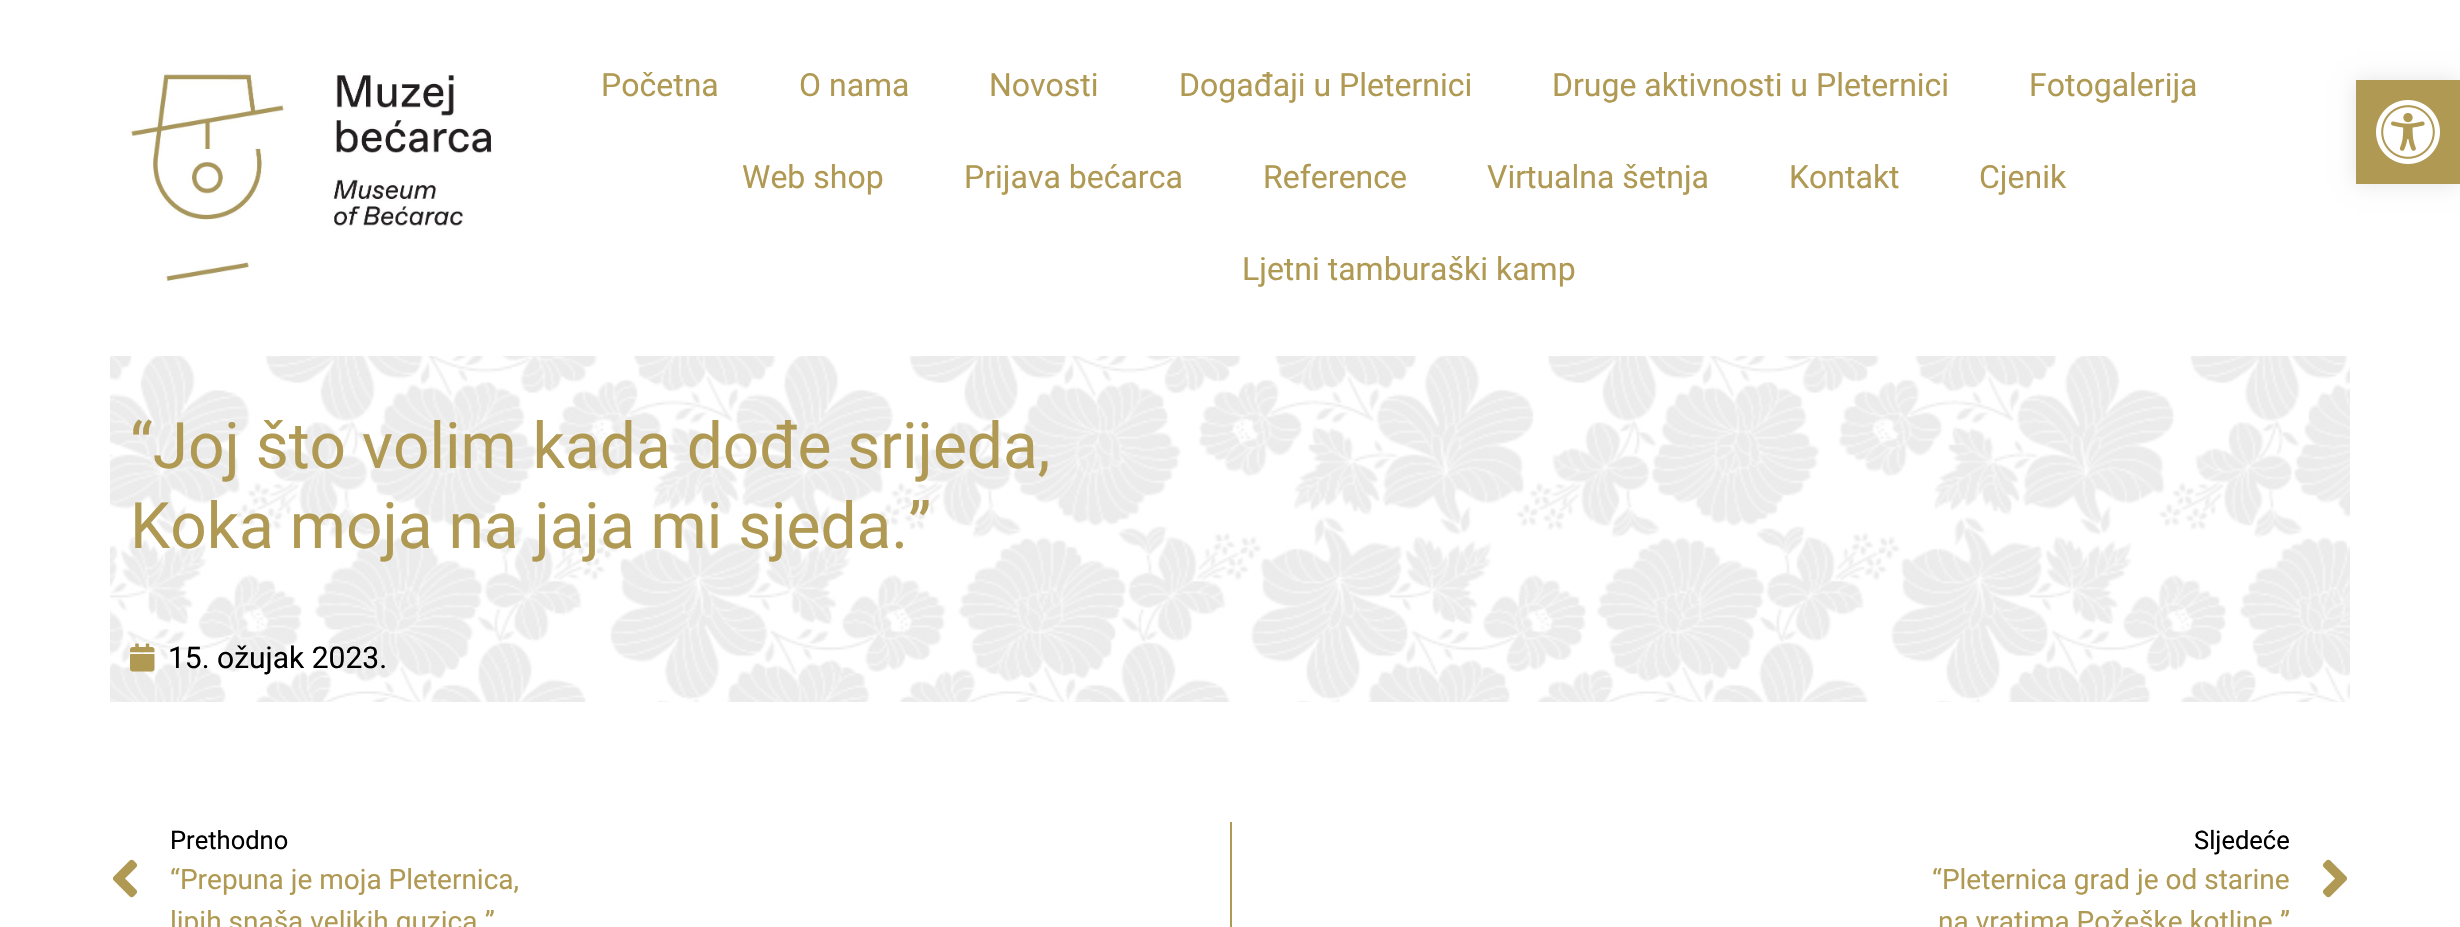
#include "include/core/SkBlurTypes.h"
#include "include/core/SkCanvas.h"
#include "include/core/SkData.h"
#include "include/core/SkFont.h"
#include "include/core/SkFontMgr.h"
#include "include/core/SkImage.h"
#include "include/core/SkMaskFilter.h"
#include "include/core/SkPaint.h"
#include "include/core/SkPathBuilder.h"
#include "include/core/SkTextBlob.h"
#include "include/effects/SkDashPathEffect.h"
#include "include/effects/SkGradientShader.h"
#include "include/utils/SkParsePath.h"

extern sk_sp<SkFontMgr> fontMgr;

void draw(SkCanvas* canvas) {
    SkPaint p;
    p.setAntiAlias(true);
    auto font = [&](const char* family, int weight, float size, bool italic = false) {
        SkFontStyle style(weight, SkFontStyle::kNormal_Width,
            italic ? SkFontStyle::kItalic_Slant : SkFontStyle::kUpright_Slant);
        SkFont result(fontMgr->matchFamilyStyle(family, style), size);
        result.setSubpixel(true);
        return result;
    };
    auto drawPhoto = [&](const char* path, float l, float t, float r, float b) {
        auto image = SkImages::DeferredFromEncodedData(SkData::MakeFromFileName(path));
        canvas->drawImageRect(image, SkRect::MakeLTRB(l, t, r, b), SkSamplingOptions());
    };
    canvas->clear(0xFFFFFFFF);
    drawPhoto("media/1.png", 130, 72, 492, 284);
    auto font1 = font("Roboto", 400, 32);
    p.setColor(0xFFB09953);
    {
        const struct { const char* s; float x, y; } items[] = {
            {"Početna", 601, 96},
            {"O nama", 799, 96},
            {"Novosti", 989, 96},
            {"Događaji u Pleternici", 1179, 96},
            {"Druge aktivnosti u Pleternici", 1552, 96},
            {"Fotogalerija", 2029, 96},
            {"Web shop", 742, 188},
            {"Prijava bećarca", 964, 188},
            {"Reference", 1263, 188},
            {"Virtualna šetnja", 1487, 188},
            {"Kontakt", 1789, 188},
            {"Cjenik", 1979, 188},
            {"Ljetni tamburaški kamp", 1242, 280},
        };
        for (auto [s, x, y] : items) {
            canvas->drawString(s, x, y, font1, p);
        }
    }
    p.setColor(0x1A000000);
    p.setMaskFilter(SkMaskFilter::MakeBlur(kNormal_SkBlurStyle, 10));
    canvas->drawRect(SkRect::MakeLTRB(2356, 80, 2460, 184), p);
    p.setMaskFilter(nullptr);
    p.setColor(0xFFB09953);
    canvas->drawRect(SkRect::MakeLTRB(2356, 80, 2460, 184), p);
    drawPhoto("media/2.png", 2376, 100, 2440, 164);
    drawPhoto("media/3.png", 110, 356, 2350, 702);
    auto font2 = font("Roboto", 400, 64);
    canvas->drawString("“Joj što volim kada dođe srijeda,", 130, 468, font2, p);
    canvas->drawString("Koka moja na jaja mi sjeda.”", 130, 548, font2, p);
    drawPhoto("media/4.png", 130, 643, 155, 672);
    auto font3 = font("Roboto", 400, 30);
    p.setColor(0xFF000000);
    canvas->drawString("15. ožujak 2023.", 168, 668, font3, p);
    drawPhoto("media/5.png", 112, 859, 138, 898);
    auto font4 = font("Roboto", 400, 25.5f);
    canvas->drawString("Prethodno", 170, 849, font4, p);
    auto font5 = font("Roboto", 400, 28);
    p.setColor(0xFFB09953);
    canvas->drawString("“Prepuna je moja Pleternica,", 170, 889, font5, p);
    canvas->drawString("lipih snaša velikih guzica.”", 170, 931, font5, p);
    canvas->drawRect(SkRect::MakeLTRB(1230, 822, 1232, 927), p);
    p.setColor(0xFF000000);
    canvas->drawString("Sljedeće", 2194, 849, font4, p);
    p.setColor(0xFFB09953);
    canvas->drawString("“Pleternica grad je od starine", 1932, 889, font5, p);
    canvas->drawString("na vratima Požeške kotline.”", 1938, 931, font5, p);
    drawPhoto("media/6.png", 2322, 859, 2348, 898);
}
